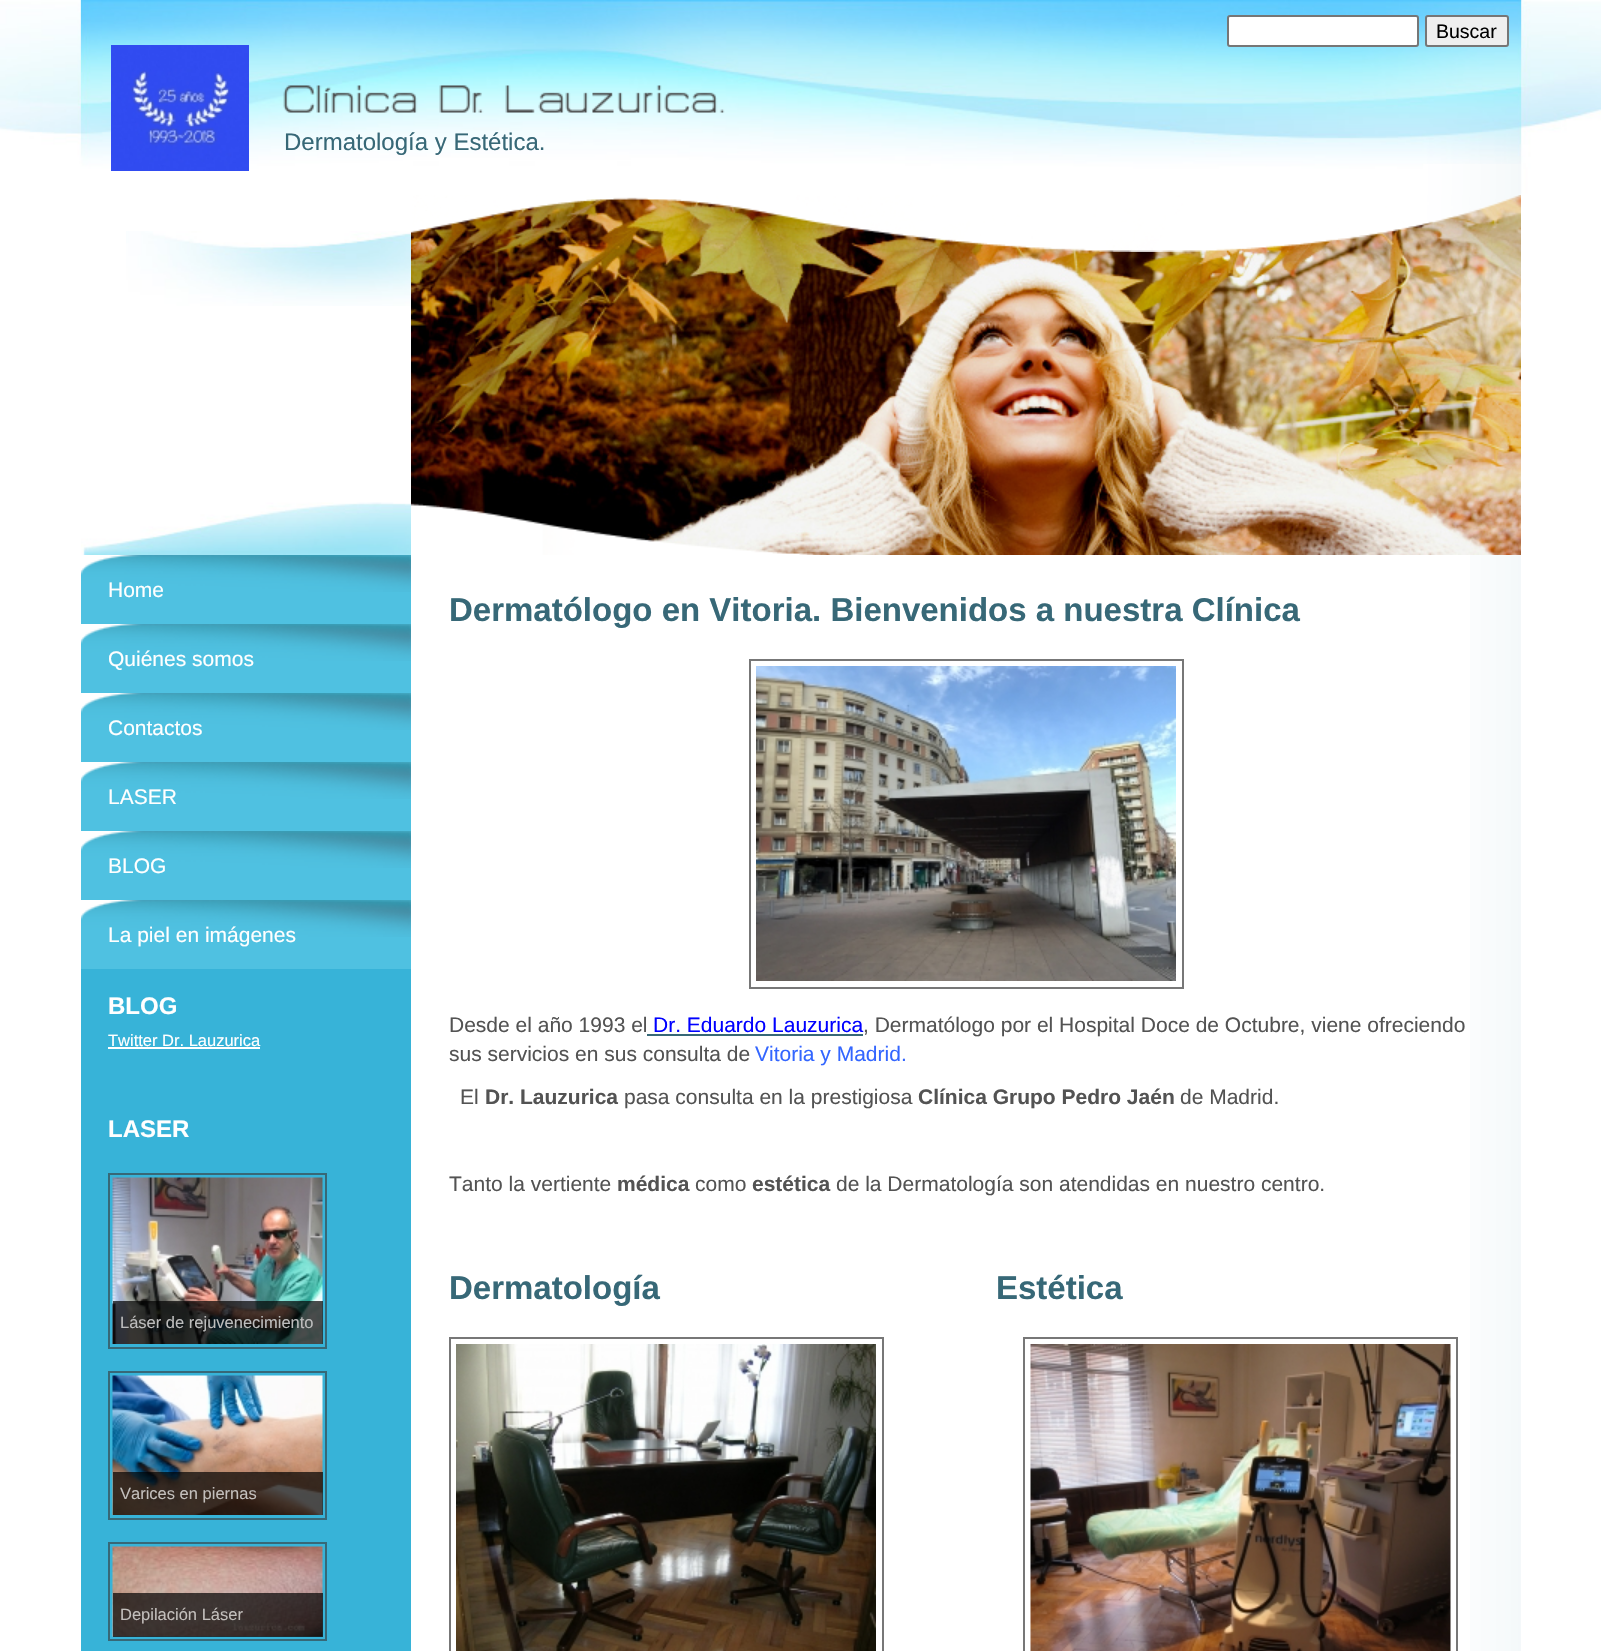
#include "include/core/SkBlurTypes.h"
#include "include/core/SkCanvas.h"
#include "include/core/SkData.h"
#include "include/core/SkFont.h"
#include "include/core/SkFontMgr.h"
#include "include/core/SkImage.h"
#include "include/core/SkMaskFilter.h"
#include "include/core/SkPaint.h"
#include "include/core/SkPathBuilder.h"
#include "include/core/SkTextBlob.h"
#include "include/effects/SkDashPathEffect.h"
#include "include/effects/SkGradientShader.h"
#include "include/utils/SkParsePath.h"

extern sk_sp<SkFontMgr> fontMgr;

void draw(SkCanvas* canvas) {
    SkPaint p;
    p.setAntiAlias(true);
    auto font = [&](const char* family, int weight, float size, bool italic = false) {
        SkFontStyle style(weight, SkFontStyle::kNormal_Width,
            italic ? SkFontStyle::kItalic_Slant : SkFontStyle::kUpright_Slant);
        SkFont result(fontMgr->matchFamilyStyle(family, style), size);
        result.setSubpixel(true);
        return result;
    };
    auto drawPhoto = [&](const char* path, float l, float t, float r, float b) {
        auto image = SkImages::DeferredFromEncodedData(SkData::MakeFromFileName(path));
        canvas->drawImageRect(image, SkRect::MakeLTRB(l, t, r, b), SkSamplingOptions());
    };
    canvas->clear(0xFFFFFFFF);
    drawPhoto("media/1.png", 0, 0, 1601, 194);
    drawPhoto("media/3.png", 81, 0, 1521, 164);
    p.setColor(0xFFFFFFFF);
    canvas->drawRoundRect(SkRect::MakeLTRB(1228, 16, 1418, 46), 2, 2, p);
    p.setStyle(SkPaint::kStroke_Style);
    p.setStrokeWidth(2);
    p.setColor(0xFF767676);
    canvas->drawRoundRect(SkRect::MakeLTRB(1228, 16, 1418, 46), 2, 2, p);
    p.setStyle(SkPaint::kFill_Style);
    p.setColor(0xFFEFEFEF);
    canvas->drawRoundRect(SkRect::MakeLTRB(1426, 16, 1508, 46), 2, 2, p);
    p.setStyle(SkPaint::kStroke_Style);
    p.setColor(0xFF767676);
    canvas->drawRoundRect(SkRect::MakeLTRB(1426, 16, 1508, 46), 2, 2, p);
    auto font1 = font("Liberation Sans", 400, 19.5f);
    p.setStyle(SkPaint::kFill_Style);
    p.setColor(0xFF000000);
    canvas->drawString("Buscar", 1436, 38, font1, p);
    drawPhoto("media/2.png", 1423, 164, 1521, 195);
    drawPhoto("media/4.png", 126, 231, 411, 306);
    drawPhoto("media/5.png", 81, 502, 411, 555);
    drawPhoto("media/6.png", 111, 45, 249, 171);
    drawPhoto("media/7.png", 283, 85, 725, 113);
    auto font2 = font("Liberation Sans", 400, 24);
    p.setColor(0xFF376877);
    canvas->drawString("Dermatología y Estética.", 284, 150, font2, p);
    drawPhoto("media/8.png", 411, 195, 1521, 555);
    drawPhoto("media/9.png", 411, 195, 1521, 252);
    drawPhoto("media/10.png", 411, 503, 828, 555);
    p.setColor(0xFF37B3D8);
    canvas->drawRect(SkRect::MakeLTRB(81, 969, 411, 1651), p);
    drawPhoto("media/11.png", 1470, 555, 1521, 1651);
    p.setColor(0xFF4FC1E1);
    canvas->drawRect(SkRect::MakeLTRB(81, 592, 411, 624), p);
    drawPhoto("media/12.png", 81, 555, 411, 592);
    auto font3 = font("Liberation Sans", 400, 21);
    p.setColor(0xFFFFFFFF);
    canvas->drawString("Home", 108, 597, font3, p);
    p.setColor(0xFF4FC1E1);
    canvas->drawRect(SkRect::MakeLTRB(81, 661, 411, 693), p);
    drawPhoto("media/12.png", 81, 624, 411, 661);
    p.setColor(0xFFFFFFFF);
    canvas->drawString("Quiénes somos", 108, 666, font3, p);
    p.setColor(0xFF4FC1E1);
    canvas->drawRect(SkRect::MakeLTRB(81, 730, 411, 762), p);
    drawPhoto("media/12.png", 81, 693, 411, 730);
    p.setColor(0xFFFFFFFF);
    canvas->drawString("Contactos", 108, 735, font3, p);
    p.setColor(0xFF4FC1E1);
    canvas->drawRect(SkRect::MakeLTRB(81, 799, 411, 831), p);
    drawPhoto("media/12.png", 81, 762, 411, 799);
    p.setColor(0xFFFFFFFF);
    canvas->drawString("LASER", 108, 804, font3, p);
    p.setColor(0xFF4FC1E1);
    canvas->drawRect(SkRect::MakeLTRB(81, 868, 411, 900), p);
    drawPhoto("media/12.png", 81, 831, 411, 868);
    p.setColor(0xFFFFFFFF);
    canvas->drawString("BLOG", 108, 873, font3, p);
    p.setColor(0xFF4FC1E1);
    canvas->drawRect(SkRect::MakeLTRB(81, 937, 411, 969), p);
    drawPhoto("media/12.png", 81, 900, 411, 937);
    p.setColor(0xFFFFFFFF);
    canvas->drawString("La piel en imágenes", 108, 942, font3, p);
    auto font4 = font("Liberation Sans", 700, 24);
    canvas->drawString("BLOG", 108, 1014, font4, p);
    auto font5 = font("Liberation Sans", 400, 16.5f);
    canvas->drawString("Twitter Dr. Lauzurica", 108, 1046, font5, p);
    canvas->drawRect(SkRect::MakeLTRB(108, 1047, 260, 1049), p);
    canvas->drawString("LASER", 108, 1137, font4, p);
    p.setStyle(SkPaint::kStroke_Style);
    p.setColor(0xFF376877);
    canvas->drawRect(SkRect::MakeLTRB(109, 1174, 326, 1348), p);
    drawPhoto("media/13.png", 112, 1177, 323, 1344);
    p.setStyle(SkPaint::kFill_Style);
    p.setColor(0xB3000000);
    canvas->drawRect(SkRect::MakeLTRB(113, 1301, 323, 1344), p);
    p.setColor(0xFFBDBDBD);
    canvas->drawString("Láser de rejuvenecimiento", 120, 1328, font5, p);
    p.setStyle(SkPaint::kStroke_Style);
    p.setColor(0xFF376877);
    canvas->drawRect(SkRect::MakeLTRB(109, 1372, 326, 1519), p);
    drawPhoto("media/14.png", 112, 1375, 323, 1515);
    p.setStyle(SkPaint::kFill_Style);
    p.setColor(0xB3000000);
    canvas->drawRect(SkRect::MakeLTRB(113, 1472, 323, 1515), p);
    p.setColor(0xFFC3BFBC);
    canvas->drawString("Varices en piernas", 120, 1499, font5, p);
    p.setStyle(SkPaint::kStroke_Style);
    p.setColor(0xFF376877);
    canvas->drawRect(SkRect::MakeLTRB(109, 1543, 326, 1640), p);
    drawPhoto("media/15.png", 112, 1546, 323, 1637);
    p.setStyle(SkPaint::kFill_Style);
    p.setColor(0xB3000000);
    canvas->drawRect(SkRect::MakeLTRB(113, 1593, 323, 1637), p);
    p.setColor(0xFFC3BFBC);
    canvas->drawString("Depilación Láser", 120, 1620, font5, p);
    auto font6 = font("Liberation Sans", 700, 33);
    p.setColor(0xFF376877);
    canvas->drawString("Dermatólogo en Vitoria. Bienvenidos a nuestra Clínica", 449, 621, font6, p);
    p.setStyle(SkPaint::kStroke_Style);
    p.setColor(0xFF777777);
    canvas->drawRect(SkRect::MakeLTRB(750, 660, 1183, 988), p);
    drawPhoto("media/16.png", 756, 666, 1176, 981);
    p.setStyle(SkPaint::kFill_Style);
    p.setColor(0xFF535353);
    canvas->drawString("Desde el año 1993 el", 449, 1032, font3, p);
    p.setColor(0xFF0000FF);
    canvas->drawString("Dr. Eduardo Lauzurica", 653, 1032, font3, p);
    p.setColor(0xFF376877);
    canvas->drawRect(SkRect::MakeLTRB(647, 1034, 863, 1036), p);
    p.setColor(0xFF535353);
    canvas->drawString(", Dermatólogo por el Hospital Doce de Octubre, viene ofreciendo", 863, 1032, font3, p);
    canvas->drawString("sus servicios en sus consulta de", 449, 1061, font3, p);
    p.setColor(0xFF3366FF);
    canvas->drawString("Vitoria y Madrid.", 755, 1061, font3, p);
    p.setColor(0xFF535353);
    canvas->drawString("El", 460, 1104, font3, p);
    auto font7 = font("Liberation Sans", 700, 21);
    canvas->drawString("Dr. Lauzurica", 485, 1104, font7, p);
    canvas->drawString("pasa consulta en la prestigiosa", 624, 1104, font3, p);
    canvas->drawString("Clínica Grupo Pedro Jaén", 918, 1104, font7, p);
    canvas->drawString("de Madrid.", 1180, 1104, font3, p);
    canvas->drawString("Tanto la vertiente", 449, 1191, font3, p);
    canvas->drawString("médica", 617, 1191, font7, p);
    canvas->drawString("como", 695, 1191, font3, p);
    canvas->drawString("estética", 752, 1191, font7, p);
    canvas->drawString("de la Dermatología son atendidas en nuestro centro.", 836, 1191, font3, p);
    p.setColor(0xFF376877);
    canvas->drawString("Dermatología", 449, 1299, font6, p);
    p.setStyle(SkPaint::kStroke_Style);
    p.setColor(0xFF777777);
    canvas->drawRect(SkRect::MakeLTRB(450, 1338, 883, 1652), p);
    drawPhoto("media/17.png", 456, 1344, 876, 1651);
    p.setStyle(SkPaint::kFill_Style);
    p.setColor(0xFF376877);
    canvas->drawString("Estética", 996, 1299, font6, p);
    p.setStyle(SkPaint::kStroke_Style);
    p.setColor(0xFF777777);
    canvas->drawRect(SkRect::MakeLTRB(1024, 1338, 1457, 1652), p);
    drawPhoto("media/18.png", 1030, 1344, 1451, 1651);
}
